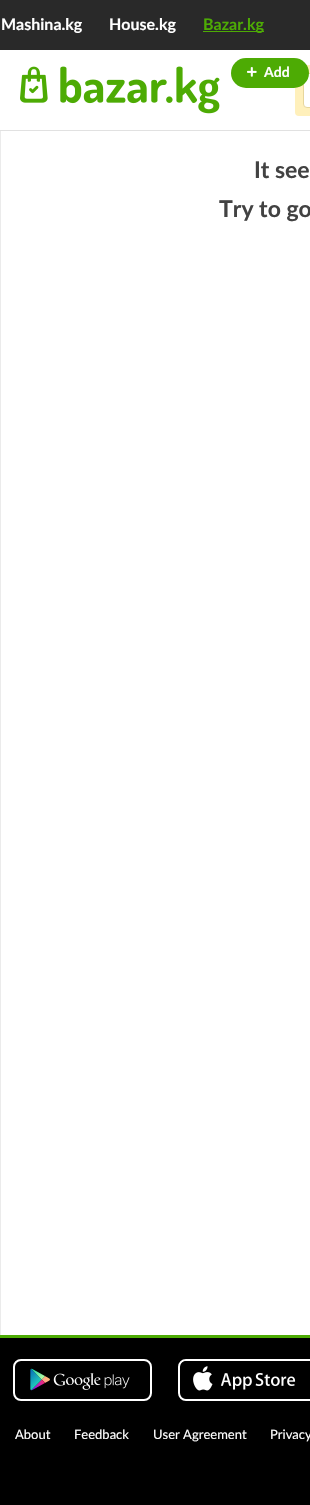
#include "include/core/SkBlurTypes.h"
#include "include/core/SkCanvas.h"
#include "include/core/SkData.h"
#include "include/core/SkFont.h"
#include "include/core/SkFontMgr.h"
#include "include/core/SkImage.h"
#include "include/core/SkMaskFilter.h"
#include "include/core/SkPaint.h"
#include "include/core/SkPathBuilder.h"
#include "include/core/SkTextBlob.h"
#include "include/effects/SkDashPathEffect.h"
#include "include/effects/SkGradientShader.h"
#include "include/utils/SkParsePath.h"

extern sk_sp<SkFontMgr> fontMgr;

void draw(SkCanvas* canvas) {
    SkPaint p;
    p.setAntiAlias(true);
    auto font = [&](const char* family, int weight, float size, bool italic = false) {
        SkFontStyle style(weight, SkFontStyle::kNormal_Width,
            italic ? SkFontStyle::kItalic_Slant : SkFontStyle::kUpright_Slant);
        SkFont result(fontMgr->matchFamilyStyle(family, style), size);
        result.setSubpixel(true);
        return result;
    };
    auto drawPhoto = [&](const char* path, float l, float t, float r, float b) {
        auto image = SkImages::DeferredFromEncodedData(SkData::MakeFromFileName(path));
        canvas->drawImageRect(image, SkRect::MakeLTRB(l, t, r, b), SkSamplingOptions());
    };
    canvas->clear(0xFFFFFFFF);
    p.setColor(0xFF292929);
    canvas->drawRect(SkRect::MakeLTRB(0, 0, 310, 50), p);
    auto font1 = font("Lato", 700, 16);
    p.setColor(0xFFFFFFFF);
    canvas->drawString("Mashina.kg", 1, 30, font1, p);
    canvas->drawString("House.kg", 109, 30, font1, p);
    p.setColor(0xFF4DAB04);
    canvas->drawRect(SkRect::MakeLTRB(203, 31, 264, 32), p);
    canvas->drawString("Bazar.kg", 203, 30, font1, p);
    p.setColor(0xFFFFF0BB);
    canvas->drawRoundRect(SkRect::MakeLTRB(295, 65, 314, 116), 4, 4, p);
    p.setColor(0xFFFFFFFF);
    canvas->drawRoundRect(SkRect::MakeLTRB(303.5f, 73.5f, 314.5f, 107.5f), 3.5f, 3.5f, p);
    p.setStyle(SkPaint::kStroke_Style);
    p.setStrokeWidth(1);
    p.setColor(0xFFE7D69C);
    canvas->drawRoundRect(SkRect::MakeLTRB(303.5f, 73.5f, 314.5f, 107.5f), 3.5f, 3.5f, p);
    p.setStyle(SkPaint::kFill_Style);
    p.setColor(0xFF4DAB04);
    canvas->drawRoundRect(SkRect::MakeLTRB(231, 58, 309, 88), 15, 15, p);
    drawPhoto("media/1.png", 247, 67, 257, 77);
    auto font2 = font("Lato", 700, 14);
    p.setColor(0xFFFFFFFF);
    canvas->drawString("Add", 264, 77, font2, p);
    p.setColor(0xFFE1E1E1);
    canvas->drawRect(SkRect::MakeLTRB(0, 130, 310, 131), p);
    drawPhoto("media/2.png", 20, 66, 220, 114);
    p.setColor(0xFFEBEBEB);
    canvas->drawRect(SkRect::MakeLTRB(0, 131, 1, 1335), p);
    auto font3 = font("Lato", 700, 23);
    p.setColor(0xFF424242);
    canvas->drawString("It see", 254, 178, font3, p);
    canvas->drawString("Try to go", 219, 217, font3, p);
    p.setColor(0xFF000000);
    canvas->drawRect(SkRect::MakeLTRB(0, 1338, 310, 1505), p);
    p.setColor(0xFF4DAB04);
    canvas->drawRect(SkRect::MakeLTRB(0, 1335, 310, 1338), p);
    p.setStyle(SkPaint::kStroke_Style);
    p.setStrokeWidth(2);
    p.setColor(0xFFFFFFFF);
    canvas->drawRoundRect(SkRect::MakeLTRB(14, 1360, 151, 1400), 7, 7, p);
    drawPhoto("media/3.png", 30, 1368, 130, 1391);
    canvas->drawRoundRect(SkRect::MakeLTRB(179, 1360, 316, 1400), 7, 7, p);
    drawPhoto("media/4.png", 181, 1361, 310, 1399);
    auto font4 = font("Lato", 400, 13);
    p.setStyle(SkPaint::kFill_Style);
    {
        const struct { const char* s; float x, y; } items[] = {
            {"About", 15, 1439},
            {"Feedback", 74, 1439},
            {"User Agreement", 153, 1439},
            {"Privacy", 270, 1439},
        };
        for (auto [s, x, y] : items) {
            canvas->drawString(s, x, y, font4, p);
        }
    }
}
